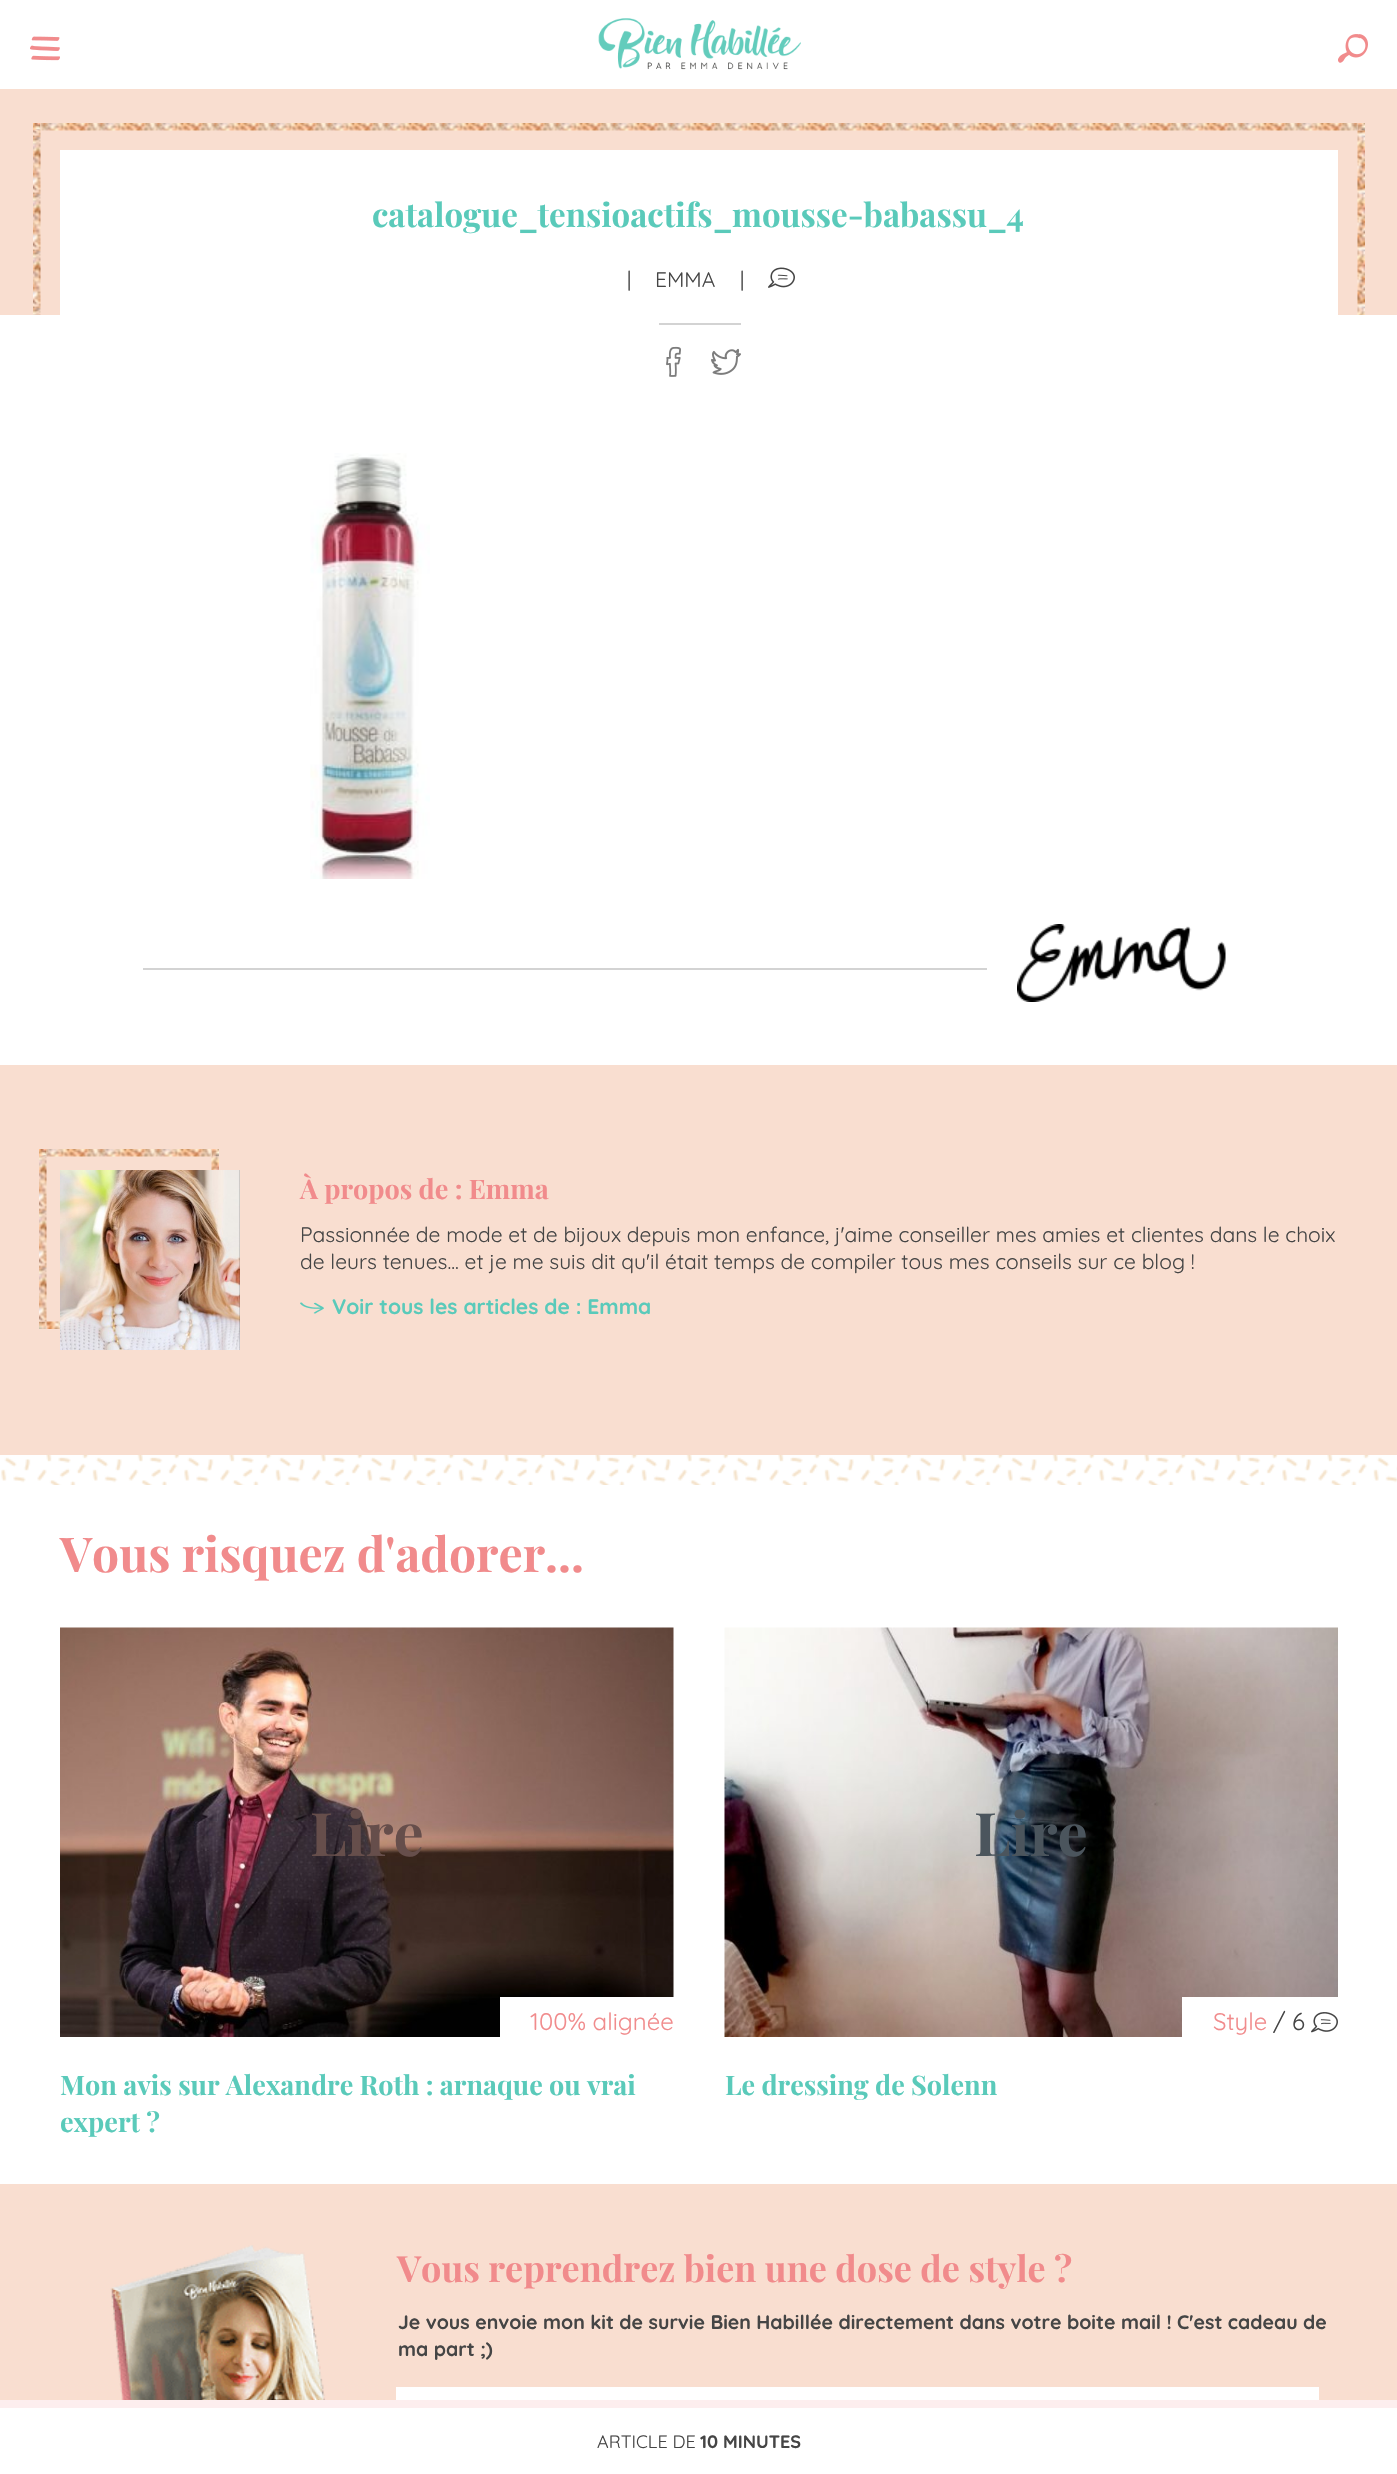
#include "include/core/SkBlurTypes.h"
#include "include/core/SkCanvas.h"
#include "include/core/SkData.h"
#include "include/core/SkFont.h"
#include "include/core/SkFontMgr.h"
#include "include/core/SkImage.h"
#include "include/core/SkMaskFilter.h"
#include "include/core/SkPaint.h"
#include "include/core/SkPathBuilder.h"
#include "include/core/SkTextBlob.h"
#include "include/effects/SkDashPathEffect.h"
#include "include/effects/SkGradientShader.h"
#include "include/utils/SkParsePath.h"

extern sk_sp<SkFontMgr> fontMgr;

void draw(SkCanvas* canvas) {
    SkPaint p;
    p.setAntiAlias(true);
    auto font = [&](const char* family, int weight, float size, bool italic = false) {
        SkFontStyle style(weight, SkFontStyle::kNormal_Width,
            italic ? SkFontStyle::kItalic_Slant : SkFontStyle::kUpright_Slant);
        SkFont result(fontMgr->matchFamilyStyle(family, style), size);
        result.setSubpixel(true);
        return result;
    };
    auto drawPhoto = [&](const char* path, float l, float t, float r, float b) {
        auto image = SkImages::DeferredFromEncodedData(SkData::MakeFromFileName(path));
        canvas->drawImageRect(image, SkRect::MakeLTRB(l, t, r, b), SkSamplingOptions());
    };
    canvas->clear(0xFFFFFFFF);
    drawPhoto("media/1.png", 30, 36, 60, 61);
    drawPhoto("media/2.png", 598, 18, 801, 70);
    drawPhoto("media/3.png", 1338, 34, 1368, 63);
    p.setColor(0xFFF9DED0);
    canvas->drawRect(SkRect::MakeLTRB(0, 89, 1397, 315), p);
    p.setColor(0xFFFFFFFF);
    canvas->drawRect(SkRect::MakeLTRB(60, 150, 1338, 315), p);
    drawPhoto("media/4.png", 33, 123, 1365, 315);
    auto font1 = font("Playfair Display", 700, 33);
    p.setColor(0xFF5ACABA);
    canvas->drawString("catalogue_tensioactifs_mousse-babassu_4", 372, 227, font1, p);
    auto font2 = font("Quicksand", 400, 21);
    p.setColor(0xFF454545);
    {
        const struct { const char* s; float x, y; } items[] = {
            {"|", 627, 287},
            {"EMMA", 655, 287},
            {"|", 740, 287},
        };
        for (auto [s, x, y] : items) {
            canvas->drawString(s, x, y, font2, p);
        }
    }
    drawPhoto("media/5.png", 768, 267, 795, 288);
    p.setColor(0xFFD3D3D3);
    canvas->drawRect(SkRect::MakeLTRB(659, 323, 741, 325), p);
    drawPhoto("media/6.png", 666, 346, 681, 377);
    drawPhoto("media/7.png", 711, 348, 741, 375);
    drawPhoto("media/8.png", 310, 453, 430, 879);
    canvas->drawRect(SkRect::MakeLTRB(143, 968, 987, 970), p);
    drawPhoto("media/9.png", 1017, 924, 1226, 1002);
    p.setColor(0xFFF9DED0);
    canvas->drawRect(SkRect::MakeLTRB(0, 1065, 1397, 1455), p);
    drawPhoto("media/10.png", 39, 1149, 219, 1329);
    drawPhoto("media/11.png", 60, 1170, 240, 1350);
    auto font3 = font("Playfair Display", 700, 27);
    p.setColor(0xFFF18B8C);
    canvas->drawString("À propos de : Emma", 300, 1199, font3, p);
    p.setColor(0xFF454545);
    canvas->drawString("Passionnée de mode et de bijoux depuis mon enfance, j'aime conseiller mes amies et clientes dans le choix", 300, 1242, font2, p);
    canvas->drawString("de leurs tenues... et je me suis dit qu'il était temps de compiler tous mes conseils sur ce blog !", 300, 1269, font2, p);
    drawPhoto("media/12.png", 300, 1302, 324, 1314);
    auto font4 = font("Quicksand", 700, 21);
    p.setColor(0xFF5ACABA);
    canvas->drawString("Voir tous les articles de : Emma", 332, 1314, font4, p);
    drawPhoto("media/13.png", 1, 1455, 1397, 1485);
    auto font5 = font("Playfair Display", 700, 48);
    p.setColor(0xFFF18B8C);
    canvas->drawString("Vous risquez d'adorer...", 60, 1572, font5, p);
    drawPhoto("media/14.png", 60, 1627, 674, 2037);
    auto font6 = font("Playfair Display", 700, 60);
    p.setColor(0xFF664E4B);
    canvas->drawString("Lire", 310, 1856, font6, p);
    p.setColor(0xFFFFFFFF);
    canvas->drawRect(SkRect::MakeLTRB(500, 1997, 674, 2037), p);
    auto font7 = font("Quicksand", 400, 24);
    p.setColor(0xFFF18B8C);
    canvas->drawString("100% alignée", 530, 2030, font7, p);
    p.setColor(0xFF5ACABA);
    canvas->drawString("Mon avis sur Alexandre Roth : arnaque ou vrai", 60, 2095, font3, p);
    canvas->drawString("expert ?", 60, 2132, font3, p);
    drawPhoto("media/15.png", 724, 1627, 1338, 2037);
    p.setColor(0xFF4B555D);
    canvas->drawString("Lire", 974, 1856, font6, p);
    p.setColor(0xFFFFFFFF);
    canvas->drawRect(SkRect::MakeLTRB(1182, 1997, 1338, 2037), p);
    p.setColor(0xFFF18B8C);
    canvas->drawString("Style", 1213, 2030, font7, p);
    p.setColor(0xFF454545);
    canvas->drawString("/ 6", 1273, 2030, font7, p);
    drawPhoto("media/16.png", 1311, 2012, 1338, 2033);
    p.setColor(0xFF5ACABA);
    canvas->drawString("Le dressing de Solenn", 725, 2095, font3, p);
    p.setColor(0xFFF9DED0);
    canvas->drawRect(SkRect::MakeLTRB(0, 2184, 1397, 2400), p);
    drawPhoto("media/17.png", 110, 2245, 326, 2400);
    auto font8 = font("Playfair Display", 700, 36);
    p.setColor(0xFFF18B8C);
    canvas->drawString("Vous reprendrez bien une dose de style ?", 397, 2282, font8, p);
    auto font9 = font("Quicksand", 700, 19.5f);
    p.setColor(0xFF454545);
    canvas->drawString("Je vous envoie mon kit de survie Bien Habillée directement dans votre boite mail ! C'est cadeau de", 398, 2329, font9, p);
    canvas->drawString("ma part ;)", 398, 2356, font9, p);
    p.setColor(0xFFFFFFFF);
    canvas->drawRect(SkRect::MakeLTRB(396, 2387, 1319, 2400), p);
    p.setColor(0xFFFDEEEE);
    canvas->drawRect(SkRect::MakeLTRB(0, 2400, 1397, 2408), p);
    auto font10 = font("Quicksand", 400, 18);
    p.setColor(0xFF454545);
    canvas->drawString("ARTICLE DE", 597, 2448, font10, p);
    auto font11 = font("Quicksand", 700, 18);
    canvas->drawString("10 MINUTES", 700, 2448, font11, p);
}
